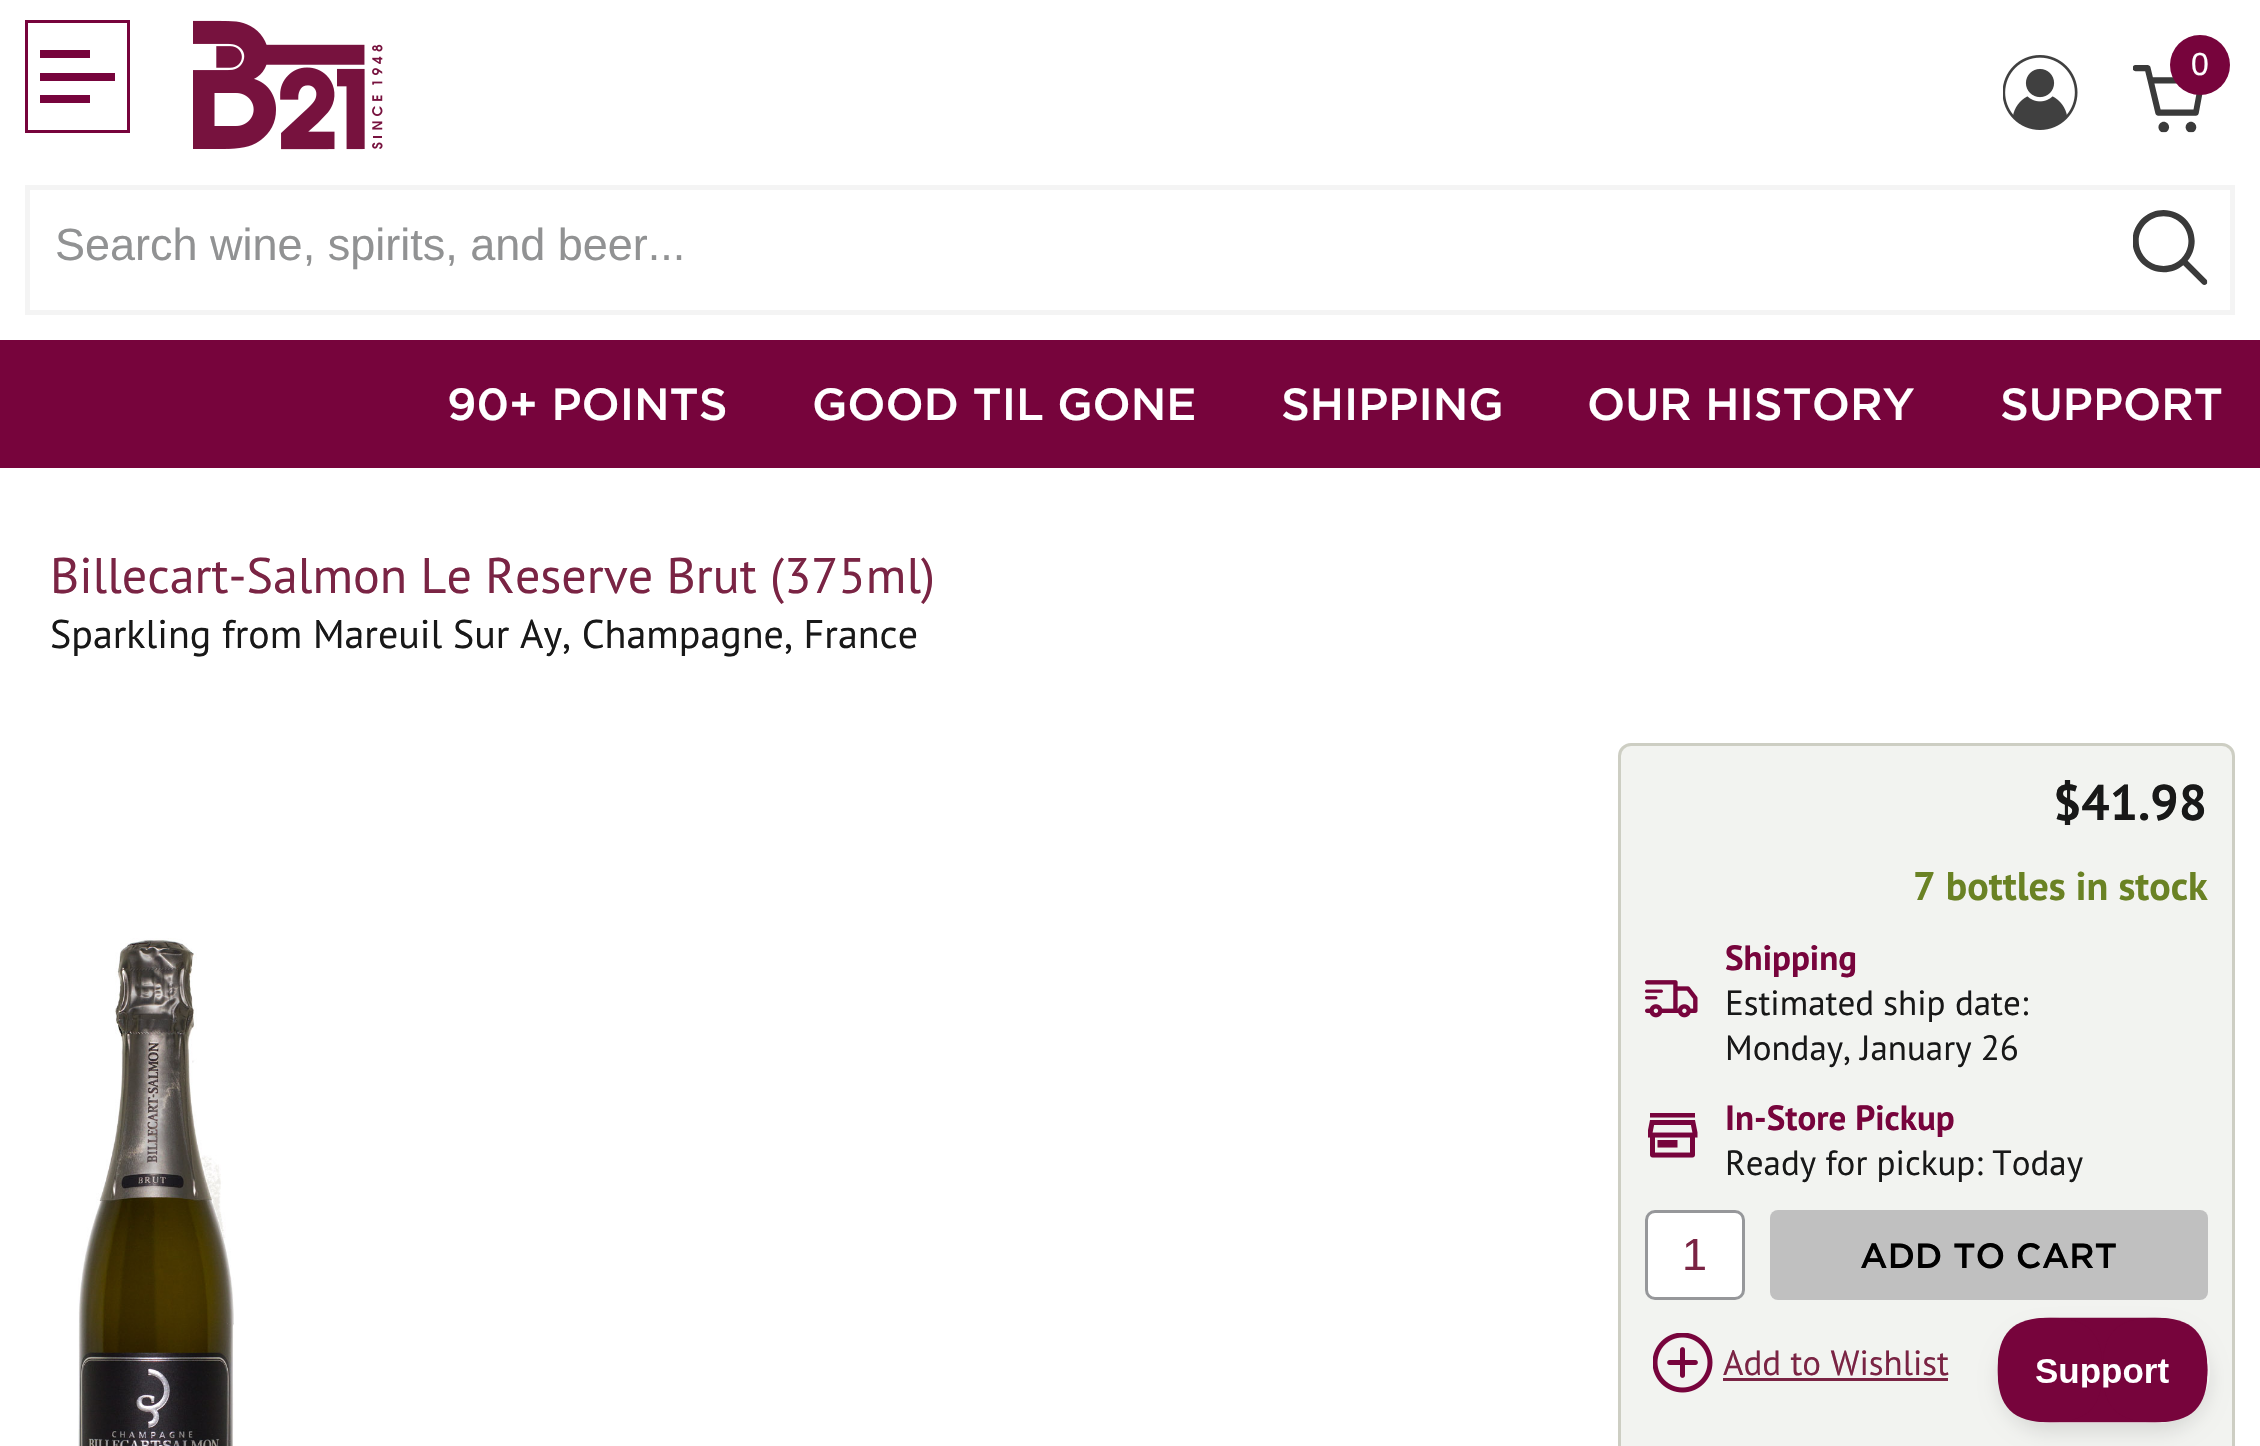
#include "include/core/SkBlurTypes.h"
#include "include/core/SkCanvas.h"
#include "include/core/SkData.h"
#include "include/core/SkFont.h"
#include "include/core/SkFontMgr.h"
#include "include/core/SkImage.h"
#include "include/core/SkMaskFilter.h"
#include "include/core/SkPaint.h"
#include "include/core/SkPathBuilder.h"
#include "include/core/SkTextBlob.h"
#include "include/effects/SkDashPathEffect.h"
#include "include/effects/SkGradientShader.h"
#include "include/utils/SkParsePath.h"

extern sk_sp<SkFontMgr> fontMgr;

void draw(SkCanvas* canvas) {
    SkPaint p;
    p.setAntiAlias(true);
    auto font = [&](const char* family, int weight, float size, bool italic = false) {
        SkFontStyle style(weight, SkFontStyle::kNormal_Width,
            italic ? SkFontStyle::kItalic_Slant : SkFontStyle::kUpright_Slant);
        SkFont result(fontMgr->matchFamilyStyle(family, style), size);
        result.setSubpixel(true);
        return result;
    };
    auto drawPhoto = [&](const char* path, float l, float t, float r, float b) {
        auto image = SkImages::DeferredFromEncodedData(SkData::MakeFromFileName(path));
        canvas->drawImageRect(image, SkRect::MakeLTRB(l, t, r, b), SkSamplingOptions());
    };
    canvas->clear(0xFFFFFFFF);
    p.setStyle(SkPaint::kStroke_Style);
    p.setStrokeWidth(3);
    p.setColor(0xFF77043C);
    canvas->drawRect(SkRect::MakeLTRB(26.5f, 21.5f, 128.5f, 131.5f), p);
    p.setStyle(SkPaint::kFill_Style);
    {
        const struct { float l, t, r, b; SkColor color; } items[] = {
            {40, 50, 90, 58, 0xFF77043C},
            {40, 73, 115, 81, 0xFF77043C},
            {40, 95, 90, 103, 0xFF77043C},
        };
        for (auto [l, t, r, b, color] : items) {
            p.setColor(color);
            canvas->drawRect(SkRect::MakeLTRB(l, t, r, b), p);
        }
    }
    drawPhoto("media/1.png", 193, 20, 383, 150);
    drawPhoto("media/2.png", 2003, 55, 2078, 130);
    drawPhoto("media/3.png", 2133, 65, 2203, 133);
    canvas->drawCircle(2200, 65, 30, p);
    auto font1 = font("Liberation Sans", 400, 32);
    p.setColor(0xFFFFFFFF);
    canvas->drawString("0", 2191, 75, font1, p);
    p.setStyle(SkPaint::kStroke_Style);
    p.setStrokeWidth(5);
    p.setColor(0xFFF4F4F4);
    canvas->drawRect(SkRect::MakeLTRB(27.5f, 187.5f, 2232.5f, 312.5f), p);
    auto font2 = font("Liberation Sans", 400, 45);
    p.setStyle(SkPaint::kFill_Style);
    p.setColor(0xFF919293);
    canvas->drawString("Search wine, spirits, and beer...", 55, 260, font2, p);
    drawPhoto("media/4.png", 2133, 210, 2208, 285);
    p.setColor(0xFF77043C);
    canvas->drawRect(SkRect::MakeLTRB(0, 340, 2260, 468), p);
    auto font3 = font("Gotham", 500, 45);
    p.setColor(0xFFFFFFFF);
    {
        const struct { const char* s; float x, y; } items[] = {
            {"90+ POINTS", 447, 420},
            {"GOOD TIL GONE", 812, 420},
            {"SHIPPING", 1281, 420},
            {"OUR HISTORY", 1587, 420},
            {"SUPPORT", 2000, 420},
        };
        for (auto [s, x, y] : items) {
            canvas->drawString(s, x, y, font3, p);
        }
    }
    auto font4 = font("PT Sans", 400, 50);
    p.setColor(0xFF7A2444);
    canvas->drawString("Billecart-Salmon Le Reserve Brut (375ml)", 50, 593, font4, p);
    auto font5 = font("PT Sans", 400, 40);
    p.setColor(0xFF181818);
    canvas->drawString("Sparkling from Mareuil Sur Ay, Champagne, France", 50, 648, font5, p);
    drawPhoto("media/5.png", 78, 938, 234, 1446);
    p.setColor(0xFFF2F3F0);
    canvas->drawRoundRect(SkRect::MakeLTRB(1619.5f, 744.5f, 2233.5f, 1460.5f), 11.5f, 11.5f, p);
    p.setStyle(SkPaint::kStroke_Style);
    p.setStrokeWidth(3);
    p.setColor(0xFFCDCEC3);
    canvas->drawRoundRect(SkRect::MakeLTRB(1619.5f, 744.5f, 2233.5f, 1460.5f), 11.5f, 11.5f, p);
    auto font6 = font("PT Sans", 700, 50);
    p.setStyle(SkPaint::kFill_Style);
    p.setColor(0xFF181818);
    canvas->drawString("$41.98", 2053, 820, font6, p);
    auto font7 = font("PT Sans", 700, 40);
    p.setColor(0xFF6A8224);
    canvas->drawString("7 bottles in stock", 1913, 900, font7, p);
    drawPhoto("media/6.png", 1645, 980, 1698, 1018);
    auto font8 = font("PT Sans", 700, 35);
    p.setColor(0xFF77043C);
    canvas->drawString("Shipping", 1725, 970, font8, p);
    auto font9 = font("PT Sans", 400, 35);
    p.setColor(0xFF181818);
    canvas->drawString("Estimated ship date:", 1725, 1015, font9, p);
    canvas->drawString("Monday, January 26", 1725, 1060, font9, p);
    drawPhoto("media/7.png", 1648, 1113, 1698, 1158);
    p.setColor(0xFF77043C);
    canvas->drawString("In-Store Pickup", 1725, 1130, font8, p);
    p.setColor(0xFF181818);
    canvas->drawString("Ready for pickup: Today", 1725, 1175, font9, p);
    p.setColor(0xFFFFFFFF);
    canvas->drawRoundRect(SkRect::MakeLTRB(1646.5f, 1211.5f, 1743.5f, 1298.5f), 8.5f, 8.5f, p);
    p.setStyle(SkPaint::kStroke_Style);
    p.setColor(0xFF96979A);
    canvas->drawRoundRect(SkRect::MakeLTRB(1646.5f, 1211.5f, 1743.5f, 1298.5f), 8.5f, 8.5f, p);
    p.setStyle(SkPaint::kFill_Style);
    p.setColor(0xFF7A2444);
    canvas->drawString("1", 1682, 1270, font2, p);
    p.setColor(0xFFC0C0C0);
    canvas->drawRoundRect(SkRect::MakeLTRB(1770, 1210, 2208, 1300), 8, 8, p);
    auto font10 = font("Gotham", 500, 35);
    p.setColor(0xFF000000);
    canvas->drawString("ADD TO CART", 1860, 1268, font10, p);
    drawPhoto("media/8.png", 1653, 1333, 1713, 1393);
    p.setColor(0xFF7A2444);
    canvas->drawString("Add to Wishlist", 1723, 1375, font9, p);
    canvas->drawRect(SkRect::MakeLTRB(1723, 1378, 1948, 1381), p);
    canvas->save();
    canvas->clipPath(SkPathBuilder(SkPathFillType::kEvenOdd).moveTo(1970, 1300).lineTo(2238, 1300).lineTo(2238, 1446).lineTo(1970, 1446).close().moveTo(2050.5f, 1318).lineTo(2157.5f, 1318).cubicTo(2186.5f, 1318, 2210, 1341.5f, 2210, 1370.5f).cubicTo(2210, 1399.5f, 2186.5f, 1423, 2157.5f, 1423).lineTo(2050.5f, 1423).cubicTo(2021.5f, 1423, 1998, 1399.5f, 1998, 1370.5f).cubicTo(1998, 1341.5f, 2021.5f, 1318, 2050.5f, 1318).close().detach(), true);
    p.setColor(0x1A000000);
    p.setMaskFilter(SkMaskFilter::MakeBlur(kNormal_SkBlurStyle, 9));
    canvas->drawRoundRect(SkRect::MakeLTRB(1998, 1328, 2210, 1433), 52.5f, 52.5f, p);
    p.setMaskFilter(nullptr);
    canvas->restore();
    drawPhoto("media/9.png", 1997, 1317, 2208, 1423);
}
